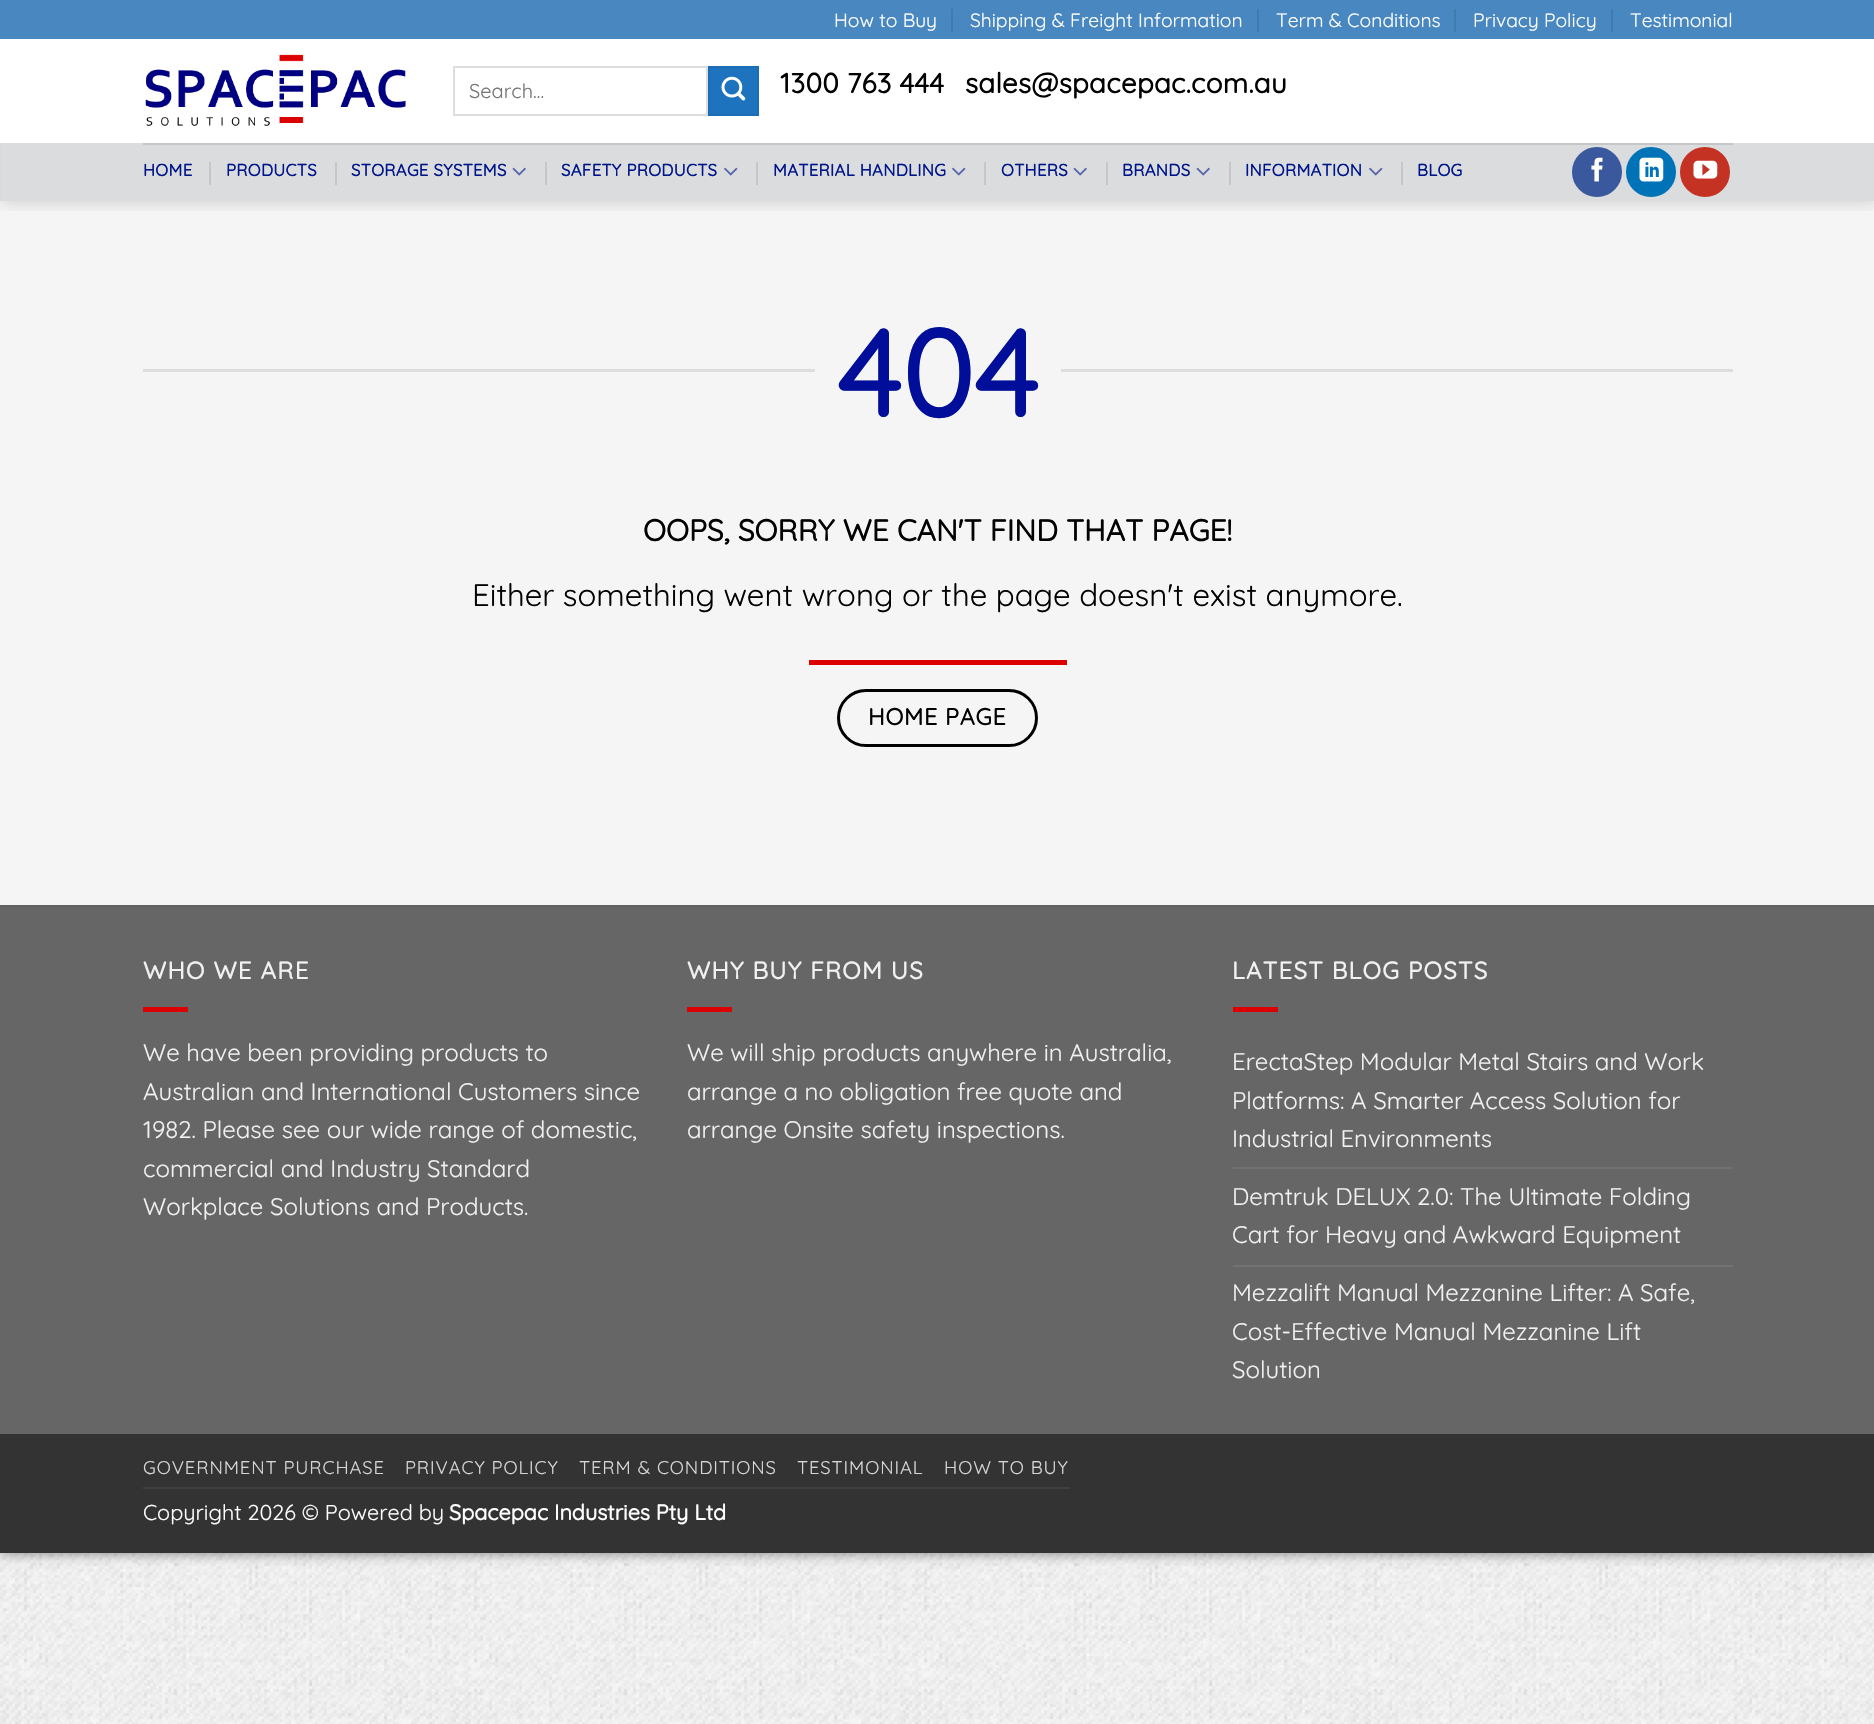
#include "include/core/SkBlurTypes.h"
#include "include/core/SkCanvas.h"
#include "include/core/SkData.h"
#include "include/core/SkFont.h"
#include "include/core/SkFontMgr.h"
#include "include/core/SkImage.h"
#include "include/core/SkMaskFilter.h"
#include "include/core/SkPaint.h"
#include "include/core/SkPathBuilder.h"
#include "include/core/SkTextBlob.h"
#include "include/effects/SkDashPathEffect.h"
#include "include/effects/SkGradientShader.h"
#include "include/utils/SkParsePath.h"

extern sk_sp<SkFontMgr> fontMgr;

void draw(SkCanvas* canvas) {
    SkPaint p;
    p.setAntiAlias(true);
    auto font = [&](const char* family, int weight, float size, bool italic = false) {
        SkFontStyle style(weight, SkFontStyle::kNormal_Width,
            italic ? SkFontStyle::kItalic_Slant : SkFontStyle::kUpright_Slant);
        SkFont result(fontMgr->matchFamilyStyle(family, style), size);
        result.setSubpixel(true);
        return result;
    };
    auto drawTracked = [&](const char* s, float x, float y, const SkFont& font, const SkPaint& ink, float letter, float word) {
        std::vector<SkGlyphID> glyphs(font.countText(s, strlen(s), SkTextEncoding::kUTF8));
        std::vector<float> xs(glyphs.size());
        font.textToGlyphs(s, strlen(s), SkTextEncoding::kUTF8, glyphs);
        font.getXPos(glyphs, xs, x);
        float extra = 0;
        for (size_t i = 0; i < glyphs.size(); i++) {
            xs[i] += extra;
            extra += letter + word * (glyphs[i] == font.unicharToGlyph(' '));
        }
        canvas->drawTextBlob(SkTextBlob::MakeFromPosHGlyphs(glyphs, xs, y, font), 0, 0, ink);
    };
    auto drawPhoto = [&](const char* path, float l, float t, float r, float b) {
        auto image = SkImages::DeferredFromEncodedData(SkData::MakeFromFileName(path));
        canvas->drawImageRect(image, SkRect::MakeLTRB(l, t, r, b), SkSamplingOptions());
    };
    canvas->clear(0xFFFFFFFF);
    drawPhoto("media/1.png", 0, 1553, 1874, 1724);
    p.setColor(0x3B000000);
    p.setMaskFilter(SkMaskFilter::MakeBlur(kNormal_SkBlurStyle, 4.5f));
    canvas->drawRect(SkRect::MakeLTRB(0, 5, 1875, 1557), p);
    p.setMaskFilter(nullptr);
    p.setColor(0x29000000);
    p.setMaskFilter(SkMaskFilter::MakeBlur(kNormal_SkBlurStyle, 4.5f));
    canvas->drawRect(SkRect::MakeLTRB(6, 11, 1869, 1551), p);
    p.setMaskFilter(nullptr);
    p.setColor(0xFFFFFFFF);
    canvas->drawRect(SkRect::MakeLTRB(0, 39, 1874, 143), p);
    p.setColor(0xFFF5F5F5);
    canvas->drawRect(SkRect::MakeLTRB(0, 201, 1874, 905), p);
    canvas->save();
    canvas->clipRect(SkRect::MakeLTRB(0, 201, 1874, 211));
    p.setColor(0x26000000);
    p.setMaskFilter(SkMaskFilter::MakeBlur(kNormal_SkBlurStyle, 7.5f));
    canvas->drawRect(SkRect::MakeLTRB(2, 2, 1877, 203), p);
    p.setMaskFilter(nullptr);
    canvas->restore();
    p.setColor(0xFF4887BF);
    canvas->drawRect(SkRect::MakeLTRB(0, 0, 1874, 39), p);
    auto font1 = font("Quicksand", 300, 19.25f);
    p.setColor(0xFFFFFFFF);
    canvas->drawString("How to Buy", 834, 27, font1, p);
    p.setColor(0xFF417AAC);
    canvas->drawRect(SkRect::MakeLTRB(951, 9, 953, 32), p);
    p.setColor(0xFFFFFFFF);
    canvas->drawString("Shipping & Freight Information", 970, 27, font1, p);
    p.setColor(0xFF417AAC);
    canvas->drawRect(SkRect::MakeLTRB(1257, 9, 1259, 32), p);
    p.setColor(0xFFFFFFFF);
    canvas->drawString("Term & Conditions", 1276, 27, font1, p);
    p.setColor(0xFF417AAC);
    canvas->drawRect(SkRect::MakeLTRB(1454, 9, 1456, 32), p);
    p.setColor(0xFFFFFFFF);
    canvas->drawString("Privacy Policy", 1473, 27, font1, p);
    p.setColor(0xFF417AAC);
    canvas->drawRect(SkRect::MakeLTRB(1611, 9, 1613, 32), p);
    p.setColor(0xFFFFFFFF);
    canvas->drawString("Testimonial", 1630, 27, font1, p);
    drawPhoto("media/2.png", 145, 54, 406, 126);
    p.setStyle(SkPaint::kStroke_Style);
    p.setStrokeWidth(2);
    p.setColor(0xFFDDDDDD);
    canvas->drawRect(SkRect::MakeLTRB(454, 67, 707, 115), p);
    auto font2 = font("Quicksand", 300, 20);
    p.setStyle(SkPaint::kFill_Style);
    p.setColor(0xFF757575);
    canvas->drawString("Search…", 469, 98, font2, p);
    p.setColor(0xFF1E73BE);
    canvas->drawRect(SkRect::MakeLTRB(709, 67, 758, 115), p);
    p.setStyle(SkPaint::kStroke_Style);
    p.setColor(0xFF1D6DB5);
    canvas->drawRect(SkRect::MakeLTRB(709, 67, 758, 115), p);
    drawPhoto("media/3.png", 721, 76, 746, 101);
    auto font3 = font("Quicksand", 700, 27.75f);
    p.setStyle(SkPaint::kFill_Style);
    p.setColor(0xFF020202);
    drawTracked("1300 763 444", 780, 93, font3, p, 0.3f, 0);
    drawTracked("sales@spacepac.com.au", 965, 93, font3, p, 0.3f, 0);
    p.setColor(0xFFDADCDD);
    canvas->drawRect(SkRect::MakeLTRB(1, 143, 1874, 201), p);
    p.setColor(0xFFC4C6C7);
    canvas->drawRect(SkRect::MakeLTRB(143, 143, 1733, 145), p);
    auto font4 = font("Quicksand", 700, 16.75f);
    p.setColor(0xFF001589);
    drawTracked("HOME", 143, 176, font4, p, 0.3f, 0);
    p.setColor(0xFFC4C6C7);
    canvas->drawRect(SkRect::MakeLTRB(209, 162, 211, 185), p);
    p.setColor(0xFF001589);
    drawTracked("PRODUCTS", 226, 176, font4, p, 0.3f, 0);
    p.setColor(0xFFC4C6C7);
    canvas->drawRect(SkRect::MakeLTRB(335, 162, 337, 185), p);
    p.setColor(0xFF001589);
    drawTracked("STORAGE SYSTEMS", 351, 176, font4, p, 0.3f, 0);
    drawPhoto("media/4.png", 512, 167, 526, 176);
    p.setColor(0xFFC4C6C7);
    canvas->drawRect(SkRect::MakeLTRB(545, 162, 547, 185), p);
    p.setColor(0xFF001589);
    drawTracked("SAFETY PRODUCTS", 561, 176, font4, p, 0.3f, 0);
    drawPhoto("media/5.png", 724, 167, 738, 176);
    p.setColor(0xFFC4C6C7);
    canvas->drawRect(SkRect::MakeLTRB(756, 162, 758, 185), p);
    p.setColor(0xFF001589);
    drawTracked("MATERIAL HANDLING", 773, 176, font4, p, 0.3f, 0);
    drawPhoto("media/5.png", 952, 167, 966, 176);
    p.setColor(0xFFC4C6C7);
    canvas->drawRect(SkRect::MakeLTRB(984, 162, 986, 185), p);
    p.setColor(0xFF001589);
    drawTracked("OTHERS", 1001, 176, font4, p, 0.3f, 0);
    drawPhoto("media/4.png", 1073, 167, 1087, 176);
    p.setColor(0xFFC4C6C7);
    canvas->drawRect(SkRect::MakeLTRB(1106, 162, 1108, 185), p);
    p.setColor(0xFF001589);
    drawTracked("BRANDS", 1122, 176, font4, p, 0.3f, 0);
    drawPhoto("media/4.png", 1196, 167, 1210, 176);
    p.setColor(0xFFC4C6C7);
    canvas->drawRect(SkRect::MakeLTRB(1229, 162, 1231, 185), p);
    p.setColor(0xFF001589);
    drawTracked("INFORMATION", 1245, 176, font4, p, 0.3f, 0);
    drawPhoto("media/5.png", 1369, 167, 1383, 176);
    p.setColor(0xFFC4C6C7);
    canvas->drawRect(SkRect::MakeLTRB(1401, 162, 1403, 185), p);
    p.setColor(0xFF001589);
    drawTracked("BLOG", 1417, 176, font4, p, 0.3f, 0);
    p.setColor(0xFF3A589D);
    canvas->drawCircle(1597, 172, 24, p);
    p.setStyle(SkPaint::kStroke_Style);
    canvas->drawCircle(1597, 172, 24, p);
    drawPhoto("media/6.png", 1591, 157, 1603, 182);
    p.setStyle(SkPaint::kFill_Style);
    p.setColor(0xFF0072B7);
    canvas->drawCircle(1651, 172, 24, p);
    p.setStyle(SkPaint::kStroke_Style);
    canvas->drawCircle(1651, 172, 24, p);
    drawPhoto("media/7.png", 1639, 157, 1664, 182);
    p.setStyle(SkPaint::kFill_Style);
    p.setColor(0xFFC33223);
    canvas->drawCircle(1705, 172, 24, p);
    p.setStyle(SkPaint::kStroke_Style);
    canvas->drawCircle(1705, 172, 24, p);
    drawPhoto("media/8.png", 1693, 160, 1718, 179);
    p.setStyle(SkPaint::kFill_Style);
    p.setColor(0xFFDDDDDD);
    canvas->drawRect(SkRect::MakeLTRB(143, 369, 815, 372), p);
    auto font5 = font("Quicksand", 700, 122);
    p.setColor(0xFF000E99);
    canvas->drawString("404", 837, 417, font5, p);
    p.setColor(0xFFDDDDDD);
    canvas->drawRect(SkRect::MakeLTRB(1061, 369, 1733, 372), p);
    auto font6 = font("Quicksand", 700, 30);
    p.setColor(0xFF020202);
    canvas->drawString("OOPS, SORRY WE CAN'T FIND THAT PAGE!", 643, 541, font6, p);
    auto font7 = font("Quicksand", 300, 31.2f);
    canvas->drawString("Either something went wrong or the page doesn't exist anymore.", 472, 606, font7, p);
    p.setColor(0xFFDD0001);
    canvas->drawRect(SkRect::MakeLTRB(809, 660, 1067, 665), p);
    p.setStyle(SkPaint::kStroke_Style);
    p.setStrokeWidth(3);
    p.setColor(0xFF000000);
    canvas->drawRoundRect(SkRect::MakeLTRB(838.5f, 690.5f, 1036.5f, 745.5f), 27.5f, 27.5f, p);
    auto font8 = font("Quicksand", 700, 23.25f);
    p.setStyle(SkPaint::kFill_Style);
    p.setColor(0xFF020202);
    drawTracked("HOME PAGE", 868, 725, font8, p, 0.75f, 0);
    p.setColor(0xFF666666);
    canvas->drawRect(SkRect::MakeLTRB(0, 907, 1874, 1434), p);
    p.setColor(0xFF616161);
    canvas->drawRect(SkRect::MakeLTRB(0, 905, 1874, 907), p);
    auto font9 = font("Quicksand", 700, 24);
    p.setColor(0xFFF1F1F1);
    drawTracked("WHO WE ARE", 143, 979, font9, p, 1.25f, 0);
    p.setColor(0xFFDD0001);
    canvas->drawRect(SkRect::MakeLTRB(143, 1007, 188, 1012), p);
    auto font10 = font("Quicksand", 300, 24);
    p.setColor(0xFFF1F1F1);
    {
        const struct { const char* s; float x, y; } items[] = {
            {"We have been providing products to", 143, 1061},
            {"Australian and International Customers since", 143, 1100},
            {"1982. Please see our wide range of domestic,", 143, 1138},
            {"commercial and Industry Standard", 143, 1177},
            {"Workplace Solutions and Products.", 143, 1215},
        };
        for (auto [s, x, y] : items) {
            canvas->drawString(s, x, y, font10, p);
        }
    }
    drawTracked("WHY BUY FROM US", 687, 979, font9, p, 1.25f, 0);
    p.setColor(0xFFDD0001);
    canvas->drawRect(SkRect::MakeLTRB(687, 1007, 732, 1012), p);
    p.setColor(0xFFF1F1F1);
    {
        const struct { const char* s; float x, y; } items[] = {
            {"We will ship products anywhere in Australia,", 687, 1061},
            {"arrange a no obligation free quote and", 687, 1100},
            {"arrange Onsite safety inspections.", 687, 1138},
        };
        for (auto [s, x, y] : items) {
            canvas->drawString(s, x, y, font10, p);
        }
    }
    drawTracked("LATEST BLOG POSTS", 1232, 979, font9, p, 1.25f, 0);
    p.setColor(0xFFDD0001);
    canvas->drawRect(SkRect::MakeLTRB(1233, 1007, 1278, 1012), p);
    p.setColor(0xFFF1F1F1);
    {
        const struct { const char* s; float x, y; } items[] = {
            {"ErectaStep Modular Metal Stairs and Work", 1232, 1070},
            {"Platforms: A Smarter Access Solution for", 1232, 1109},
            {"Industrial Environments", 1232, 1147},
        };
        for (auto [s, x, y] : items) {
            canvas->drawString(s, x, y, font10, p);
        }
    }
    p.setColor(0xFF727272);
    canvas->drawRect(SkRect::MakeLTRB(1233, 1167, 1733, 1169), p);
    p.setColor(0xFFF1F1F1);
    canvas->drawString("Demtruk DELUX 2.0: The Ultimate Folding", 1232, 1205, font10, p);
    canvas->drawString("Cart for Heavy and Awkward Equipment", 1232, 1243, font10, p);
    p.setColor(0xFF727272);
    canvas->drawRect(SkRect::MakeLTRB(1233, 1265, 1733, 1267), p);
    p.setColor(0xFFF1F1F1);
    {
        const struct { const char* s; float x, y; } items[] = {
            {"Mezzalift Manual Mezzanine Lifter: A Safe,", 1232, 1301},
            {"Cost-Effective Manual Mezzanine Lift", 1232, 1340},
            {"Solution", 1232, 1378},
        };
        for (auto [s, x, y] : items) {
            canvas->drawString(s, x, y, font10, p);
        }
    }
    p.setColor(0xFF333333);
    canvas->drawRect(SkRect::MakeLTRB(0, 1434, 1874, 1553), p);
    p.setColor(0xFF404040);
    canvas->drawRect(SkRect::MakeLTRB(143, 1487, 1070, 1489), p);
    auto font11 = font("Quicksand", 300, 18.4f);
    p.setColor(0xFFD6D6D6);
    {
        const struct { const char* s; float x, y; } items[] = {
            {"GOVERNMENT PURCHASE", 143, 1474},
            {"PRIVACY POLICY", 405, 1474},
            {"TERM & CONDITIONS", 579, 1474},
            {"TESTIMONIAL", 797, 1474},
            {"HOW TO BUY", 944, 1474},
        };
        for (auto [s, x, y] : items) {
            drawTracked(s, x, y, font11, p, 0.9f, 0);
        }
    }
    auto font12 = font("Quicksand", 300, 21.6f);
    p.setColor(0xFFFFFFFF);
    canvas->drawString("Copyright 2026 © Powered by", 143, 1520, font12, p);
    auto font13 = font("Quicksand", 700, 21.6f);
    canvas->drawString("Spacepac Industries Pty Ltd", 449, 1520, font13, p);
}
